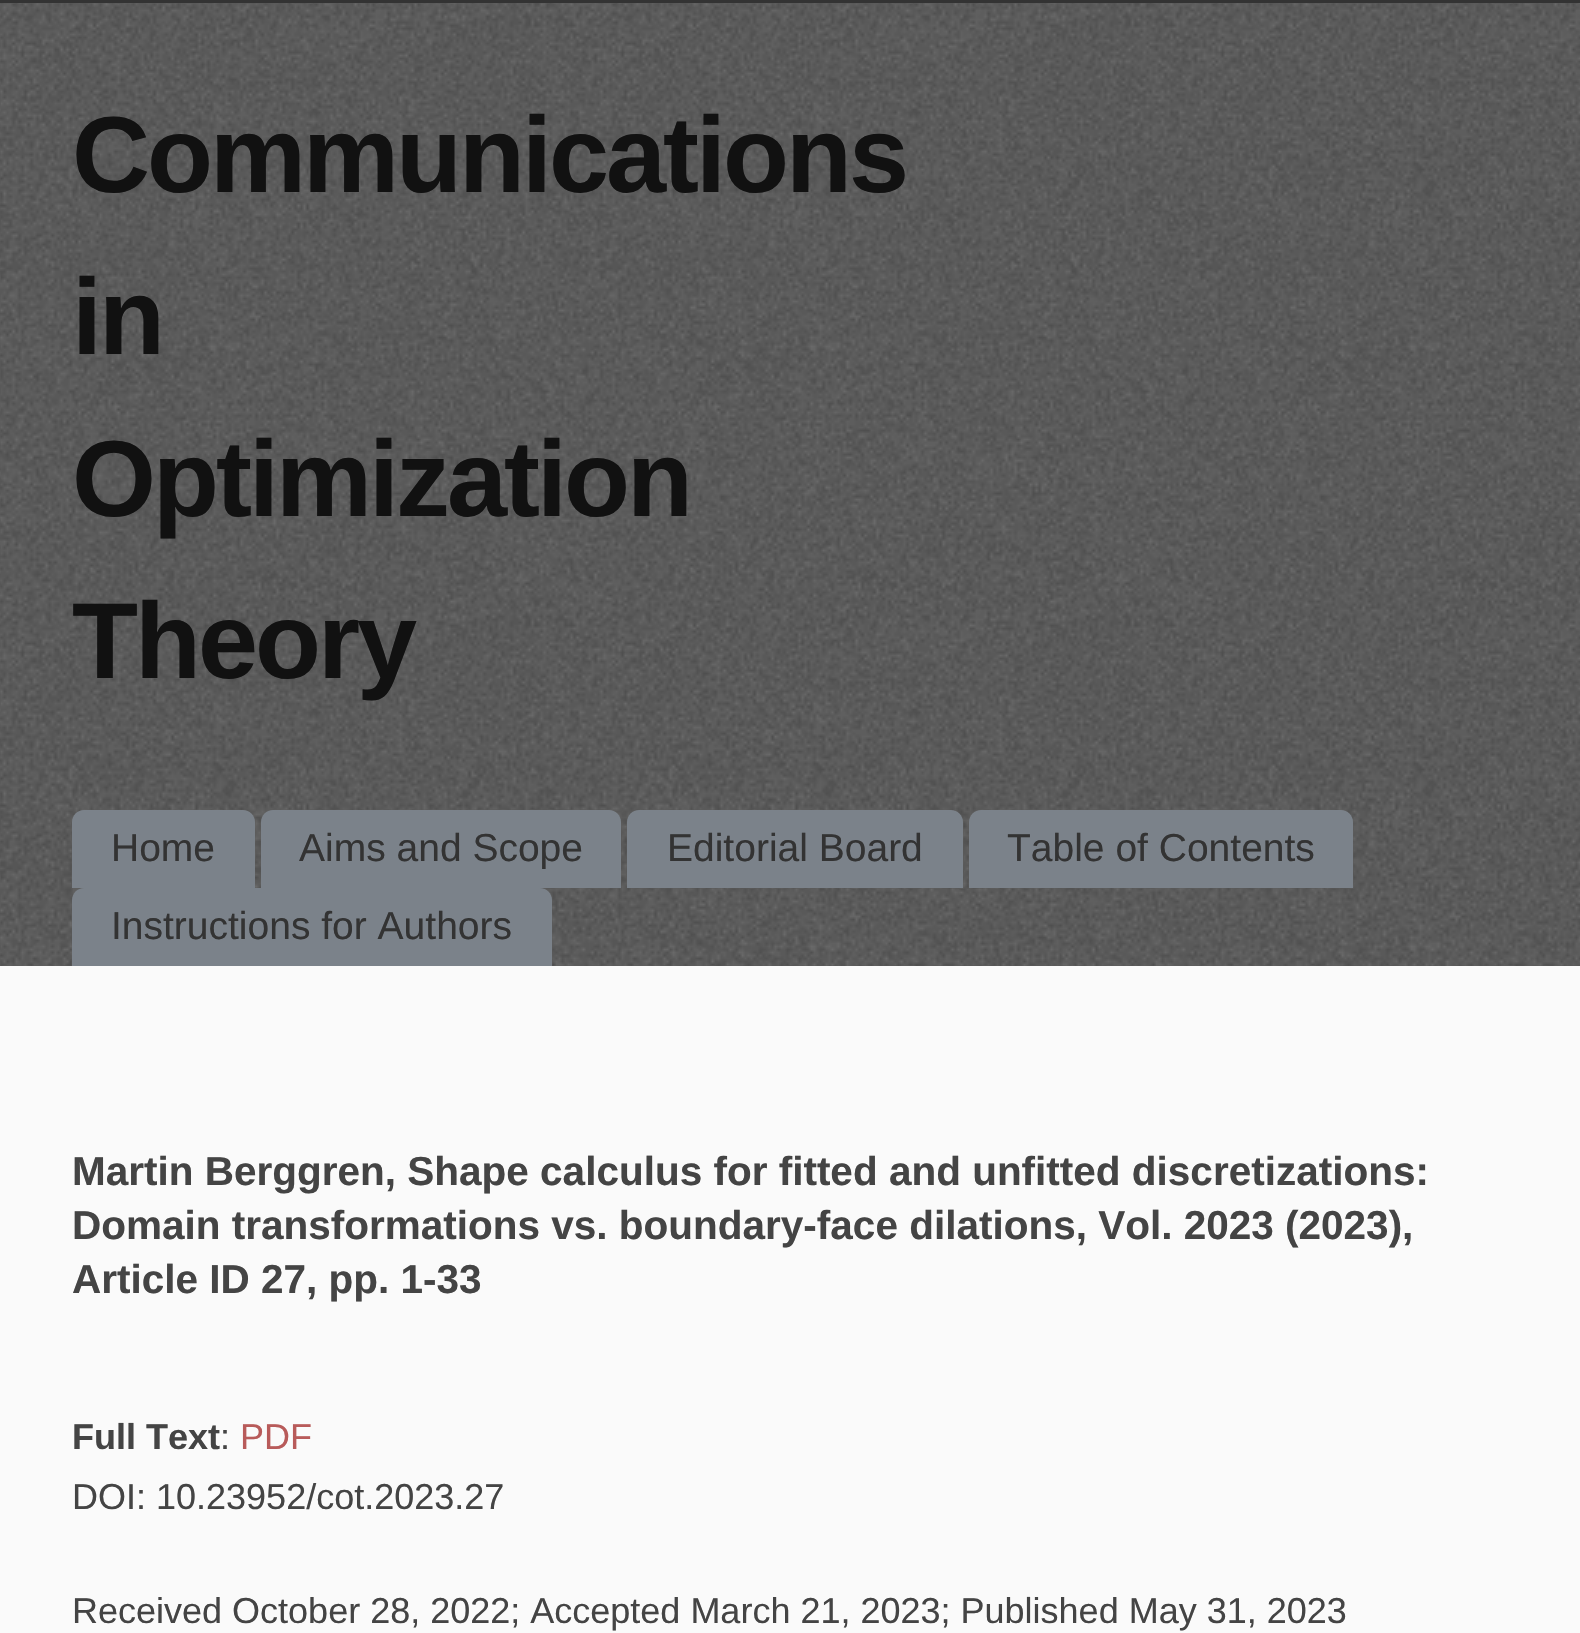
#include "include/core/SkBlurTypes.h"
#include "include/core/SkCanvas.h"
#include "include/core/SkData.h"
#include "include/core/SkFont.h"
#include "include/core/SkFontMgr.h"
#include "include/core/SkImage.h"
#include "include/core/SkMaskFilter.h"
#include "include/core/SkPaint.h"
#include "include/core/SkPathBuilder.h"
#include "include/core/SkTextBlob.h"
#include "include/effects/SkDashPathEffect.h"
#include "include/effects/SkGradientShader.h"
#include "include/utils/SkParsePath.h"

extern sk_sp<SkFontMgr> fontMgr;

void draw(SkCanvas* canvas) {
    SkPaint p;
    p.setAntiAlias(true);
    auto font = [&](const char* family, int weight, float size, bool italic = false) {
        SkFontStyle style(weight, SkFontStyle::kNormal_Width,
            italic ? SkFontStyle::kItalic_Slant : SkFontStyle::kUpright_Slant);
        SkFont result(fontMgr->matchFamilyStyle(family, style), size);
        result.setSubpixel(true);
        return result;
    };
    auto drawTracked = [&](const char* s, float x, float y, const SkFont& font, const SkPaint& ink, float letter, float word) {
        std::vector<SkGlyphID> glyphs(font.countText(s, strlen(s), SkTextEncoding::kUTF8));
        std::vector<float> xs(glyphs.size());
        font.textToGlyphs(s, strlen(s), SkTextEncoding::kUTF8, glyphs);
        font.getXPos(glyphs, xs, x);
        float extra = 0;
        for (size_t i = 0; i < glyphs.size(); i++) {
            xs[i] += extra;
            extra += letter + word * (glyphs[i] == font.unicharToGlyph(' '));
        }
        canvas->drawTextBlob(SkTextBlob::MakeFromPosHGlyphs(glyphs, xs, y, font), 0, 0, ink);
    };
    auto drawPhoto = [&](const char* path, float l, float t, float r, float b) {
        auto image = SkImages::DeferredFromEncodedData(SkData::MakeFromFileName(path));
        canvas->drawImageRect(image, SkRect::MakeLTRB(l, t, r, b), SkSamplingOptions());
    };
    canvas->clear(0xFFFAFAFA);
    drawPhoto("media/1.png", 0, 3, 1580, 966);
    p.setColor(0xFF333333);
    canvas->drawRect(SkRect::MakeLTRB(0, 0, 1580, 3), p);
    auto font1 = font("Liberation Sans", 700, 108);
    p.setColor(0xFF111111);
    {
        const struct { const char* s; float x, y; } items[] = {
            {"Communications", 72, 192},
            {"in", 72, 354},
            {"Optimization", 72, 516},
            {"Theory", 72, 678},
        };
        for (auto [s, x, y] : items) {
            drawTracked(s, x, y, font1, p, -3, 0);
        }
    }
    p.setColor(0xFF7B828A);
    canvas->drawPath(SkPathBuilder().moveTo(84, 810).lineTo(243, 810).cubicTo(249.5f, 810, 255, 815.5f, 255, 822).lineTo(255, 888).lineTo(72, 888).lineTo(72, 822).cubicTo(72, 815.5f, 77.5f, 810, 84, 810).close().detach(), p);
    auto font2 = font("Liberation Sans", 400, 39);
    p.setColor(0xFF333333);
    canvas->drawString("Home", 111, 861, font2, p);
    p.setColor(0xFF7B828A);
    canvas->drawPath(SkPathBuilder().moveTo(273, 810).lineTo(609, 810).cubicTo(615.5f, 810, 621, 815.5f, 621, 822).lineTo(621, 888).lineTo(261, 888).lineTo(261, 822).cubicTo(261, 815.5f, 266.5f, 810, 273, 810).close().detach(), p);
    p.setColor(0xFF333333);
    canvas->drawString("Aims and Scope", 299, 861, font2, p);
    p.setColor(0xFF7B828A);
    canvas->drawPath(SkPathBuilder().moveTo(639, 810).lineTo(951, 810).cubicTo(957.5f, 810, 963, 815.5f, 963, 822).lineTo(963, 888).lineTo(627, 888).lineTo(627, 822).cubicTo(627, 815.5f, 632.5f, 810, 639, 810).close().detach(), p);
    p.setColor(0xFF333333);
    canvas->drawString("Editorial Board", 667, 861, font2, p);
    p.setColor(0xFF7B828A);
    canvas->drawPath(SkPathBuilder().moveTo(981, 810).lineTo(1341, 810).cubicTo(1347.5f, 810, 1353, 815.5f, 1353, 822).lineTo(1353, 888).lineTo(969, 888).lineTo(969, 822).cubicTo(969, 815.5f, 974.5f, 810, 981, 810).close().detach(), p);
    p.setColor(0xFF333333);
    canvas->drawString("Table of Contents", 1007, 861, font2, p);
    p.setColor(0xFF7B828A);
    canvas->drawPath(SkPathBuilder().moveTo(84, 888).lineTo(540, 888).cubicTo(546.5f, 888, 552, 893.5f, 552, 900).lineTo(552, 966).lineTo(72, 966).lineTo(72, 900).cubicTo(72, 893.5f, 77.5f, 888, 84, 888).close().detach(), p);
    p.setColor(0xFF333333);
    canvas->drawString("Instructions for Authors", 111, 939, font2, p);
    auto font3 = font("Liberation Sans", 700, 40.5f);
    p.setColor(0xFF444444);
    {
        const struct { const char* s; float x, y; } items[] = {
            {"Martin Berggren, Shape calculus for fitted and unfitted discretizations:", 72, 1185},
            {"Domain transformations vs. boundary-face dilations, Vol. 2023 (2023),", 72, 1239},
            {"Article ID 27, pp. 1-33", 72, 1293},
        };
        for (auto [s, x, y] : items) {
            canvas->drawString(s, x, y, font3, p);
        }
    }
    auto font4 = font("Liberation Sans", 700, 36);
    canvas->drawString("Full Text", 72, 1449, font4, p);
    auto font5 = font("Liberation Sans", 400, 36);
    canvas->drawString(":", 220, 1449, font5, p);
    p.setColor(0xFFB85B5A);
    canvas->drawString("PDF", 240, 1449, font5, p);
    p.setColor(0xFF444444);
    canvas->drawString("DOI: 10.23952/cot.2023.27", 72, 1509, font5, p);
    canvas->drawString("Received October 28, 2022; Accepted March 21, 2023; Published May 31, 2023", 72, 1623, font5, p);
}
